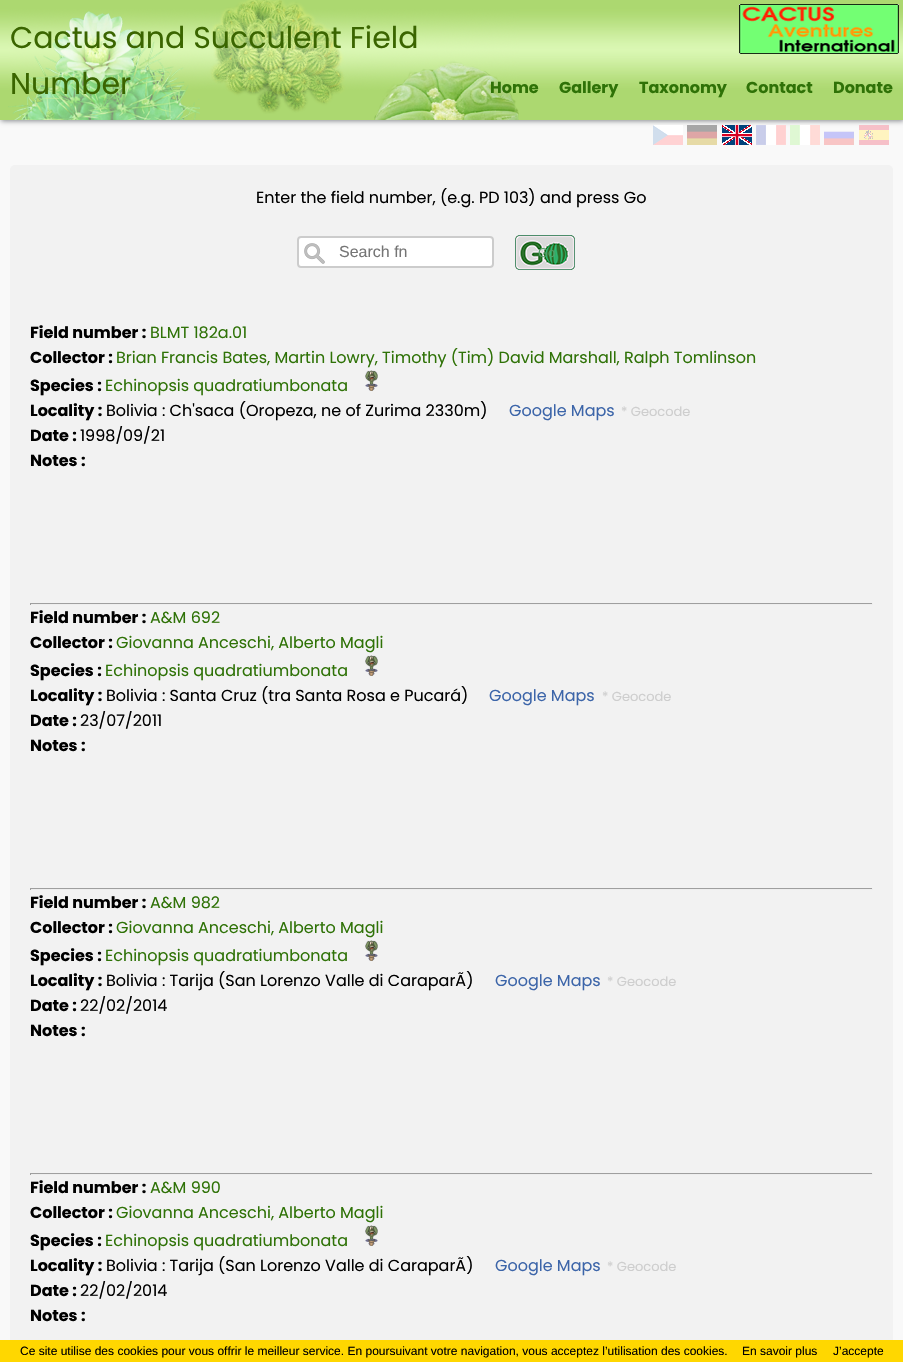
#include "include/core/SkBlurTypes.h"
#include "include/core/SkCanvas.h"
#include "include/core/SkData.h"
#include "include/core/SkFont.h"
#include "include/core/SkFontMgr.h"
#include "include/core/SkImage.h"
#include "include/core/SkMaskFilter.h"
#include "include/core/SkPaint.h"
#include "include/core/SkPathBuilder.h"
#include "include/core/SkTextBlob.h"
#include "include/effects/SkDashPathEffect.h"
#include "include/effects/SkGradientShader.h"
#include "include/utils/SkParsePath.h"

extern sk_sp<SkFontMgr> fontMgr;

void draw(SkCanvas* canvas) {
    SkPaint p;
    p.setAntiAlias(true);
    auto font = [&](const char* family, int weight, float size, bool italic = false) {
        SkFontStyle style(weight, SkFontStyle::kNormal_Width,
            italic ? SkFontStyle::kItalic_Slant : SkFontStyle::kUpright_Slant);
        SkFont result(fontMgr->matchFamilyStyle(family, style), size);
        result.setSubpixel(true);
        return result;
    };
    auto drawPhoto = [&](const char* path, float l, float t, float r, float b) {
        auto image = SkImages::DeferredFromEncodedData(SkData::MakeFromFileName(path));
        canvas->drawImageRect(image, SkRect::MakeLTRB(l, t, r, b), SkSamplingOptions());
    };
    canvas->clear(0xFFF9F9F9);
    p.setColor(0xFF85888C);
    p.setMaskFilter(SkMaskFilter::MakeBlur(kNormal_SkBlurStyle, 2.5f));
    canvas->drawRect(SkRect::MakeLTRB(1, 1, 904, 121), p);
    p.setMaskFilter(nullptr);
    drawPhoto("media/1.png", 0, 0, 903, 120);
    drawPhoto("media/2.png", 8, 0, 519, 120);
    auto font1 = font("Poppins", 400, 30);
    p.setColor(0xFF3A6500);
    canvas->drawString("Cactus and Succulent Field", 10, 48, font1, p);
    canvas->drawString("Number", 10, 94, font1, p);
    drawPhoto("media/3.png", 739, 4, 899, 54);
    auto font2 = font("Poppins", 700, 16);
    p.setColor(0xFF2F7207);
    {
        const struct { const char* s; float x, y; } items[] = {
            {"Home", 490, 93},
            {"Gallery", 559, 93},
            {"Taxonomy", 639, 93},
            {"Contact", 746, 93},
            {"Donate", 833, 93},
        };
        for (auto [s, x, y] : items) {
            canvas->drawString(s, x, y, font2, p);
        }
    }
    drawPhoto("media/4.png", 653, 125, 683, 145);
    drawPhoto("media/5.png", 687, 125, 717, 145);
    drawPhoto("media/6.png", 722, 125, 752, 145);
    drawPhoto("media/7.png", 756, 125, 786, 145);
    drawPhoto("media/8.png", 790, 125, 820, 145);
    drawPhoto("media/9.png", 824, 131, 854, 145);
    drawPhoto("media/10.png", 859, 125, 889, 145);
    p.setColor(0xFFF2F2F2);
    canvas->drawRoundRect(SkRect::MakeLTRB(10, 165, 893, 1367), 5, 5, p);
    auto font3 = font("Poppins", 400, 16);
    p.setColor(0xFF000000);
    canvas->drawString("Enter the field number, (e.g. PD 103) and press Go", 256, 203, font3, p);
    p.setColor(0xFFFFFFFF);
    canvas->drawRoundRect(SkRect::MakeLTRB(297, 236, 494, 268), 4, 4, p);
    drawPhoto("media/11.png", 304, 243, 325, 264);
    p.setStyle(SkPaint::kStroke_Style);
    p.setStrokeWidth(2);
    p.setColor(0xFFCCCCCC);
    canvas->drawRoundRect(SkRect::MakeLTRB(298, 237, 493, 267), 3, 3, p);
    auto font4 = font("Liberation Sans", 400, 16);
    p.setStyle(SkPaint::kFill_Style);
    p.setColor(0xFF757575);
    canvas->drawString("Search fn", 339, 257, font4, p);
    drawPhoto("media/12.png", 515, 235, 575, 270);
    auto font5 = font("Liberation Sans", 400, 13);
    p.setColor(0xFF559E68);
    canvas->drawString("Go", 538, 257, font5, p);
    p.setColor(0xFF000000);
    canvas->drawString("Field number :", 30, 338, font2, p);
    p.setColor(0xFF2F7207);
    canvas->drawString("BLMT 182a.01", 150, 338, font3, p);
    p.setColor(0xFF000000);
    canvas->drawString("Collector :", 30, 363, font2, p);
    p.setColor(0xFF2F7207);
    canvas->drawString("Brian Francis Bates, Martin Lowry, Timothy (Tim) David Marshall, Ralph Tomlinson", 116, 363, font3, p);
    p.setColor(0xFF000000);
    canvas->drawString("Species :", 30, 391, font2, p);
    p.setColor(0xFF2F7207);
    canvas->drawString("Echinopsis quadratiumbonata", 105, 391, font3, p);
    drawPhoto("media/13.png", 365, 370, 378, 391);
    p.setColor(0xFF000000);
    canvas->drawString("Locality :", 30, 416, font2, p);
    canvas->drawString("Bolivia : Ch'saca (Oropeza, ne of Zurima 2330m)", 106, 416, font3, p);
    p.setColor(0xFF3C65A9);
    canvas->drawString("Google Maps", 509, 416, font3, p);
    auto font6 = font("Poppins", 400, 13);
    p.setColor(0xFFCECECE);
    canvas->drawString("* Geocode", 621, 416, font6, p);
    p.setColor(0xFF000000);
    canvas->drawString("Date :", 30, 441, font2, p);
    canvas->drawString("1998/09/21", 80, 441, font3, p);
    canvas->drawString("Notes :", 30, 466, font2, p);
    {
        const struct { float l, t, r, b; SkColor color; } items[] = {
            {30, 603, 873, 604, 0xFF9F9F9F},
            {872, 603, 873, 605, 0xFFEEEEEE},
            {30, 604, 873, 605, 0xFFEEEEEE},
            {30, 603, 31, 605, 0xFF9F9F9F},
        };
        for (auto [l, t, r, b, color] : items) {
            p.setColor(color);
            canvas->drawRect(SkRect::MakeLTRB(l, t, r, b), p);
        }
    }
    p.setColor(0xFF000000);
    canvas->drawString("Field number :", 30, 623, font2, p);
    p.setColor(0xFF2F7207);
    canvas->drawString("A&M 692", 150, 623, font3, p);
    p.setColor(0xFF000000);
    canvas->drawString("Collector :", 30, 648, font2, p);
    p.setColor(0xFF2F7207);
    canvas->drawString("Giovanna Anceschi, Alberto Magli", 116, 648, font3, p);
    p.setColor(0xFF000000);
    canvas->drawString("Species :", 30, 676, font2, p);
    p.setColor(0xFF2F7207);
    canvas->drawString("Echinopsis quadratiumbonata", 105, 676, font3, p);
    drawPhoto("media/13.png", 365, 655, 378, 676);
    p.setColor(0xFF000000);
    canvas->drawString("Locality :", 30, 701, font2, p);
    canvas->drawString("Bolivia : Santa Cruz (tra Santa Rosa e Pucará)", 106, 701, font3, p);
    p.setColor(0xFF3C65A9);
    canvas->drawString("Google Maps", 489, 701, font3, p);
    p.setColor(0xFFCECECE);
    canvas->drawString("* Geocode", 602, 701, font6, p);
    p.setColor(0xFF000000);
    canvas->drawString("Date :", 30, 726, font2, p);
    canvas->drawString("23/07/2011", 80, 726, font3, p);
    canvas->drawString("Notes :", 30, 751, font2, p);
    {
        const struct { float l, t, r, b; SkColor color; } items[] = {
            {30, 888, 873, 889, 0xFF9F9F9F},
            {872, 888, 873, 890, 0xFFEEEEEE},
            {30, 889, 873, 890, 0xFFEEEEEE},
            {30, 888, 31, 890, 0xFF9F9F9F},
        };
        for (auto [l, t, r, b, color] : items) {
            p.setColor(color);
            canvas->drawRect(SkRect::MakeLTRB(l, t, r, b), p);
        }
    }
    p.setColor(0xFF000000);
    canvas->drawString("Field number :", 30, 908, font2, p);
    p.setColor(0xFF2F7207);
    canvas->drawString("A&M 982", 150, 908, font3, p);
    p.setColor(0xFF000000);
    canvas->drawString("Collector :", 30, 933, font2, p);
    p.setColor(0xFF2F7207);
    canvas->drawString("Giovanna Anceschi, Alberto Magli", 116, 933, font3, p);
    p.setColor(0xFF000000);
    canvas->drawString("Species :", 30, 961, font2, p);
    p.setColor(0xFF2F7207);
    canvas->drawString("Echinopsis quadratiumbonata", 105, 961, font3, p);
    drawPhoto("media/13.png", 365, 940, 378, 961);
    p.setColor(0xFF000000);
    canvas->drawString("Locality :", 30, 986, font2, p);
    canvas->drawString("Bolivia : Tarija (San Lorenzo Valle di CaraparÃ)", 106, 986, font3, p);
    p.setColor(0xFF3C65A9);
    canvas->drawString("Google Maps", 495, 986, font3, p);
    p.setColor(0xFFCECECE);
    canvas->drawString("* Geocode", 607, 986, font6, p);
    p.setColor(0xFF000000);
    canvas->drawString("Date :", 30, 1011, font2, p);
    canvas->drawString("22/02/2014", 80, 1011, font3, p);
    canvas->drawString("Notes :", 30, 1036, font2, p);
    {
        const struct { float l, t, r, b; SkColor color; } items[] = {
            {30, 1173, 873, 1174, 0xFF9F9F9F},
            {872, 1173, 873, 1175, 0xFFEEEEEE},
            {30, 1174, 873, 1175, 0xFFEEEEEE},
            {30, 1173, 31, 1175, 0xFF9F9F9F},
        };
        for (auto [l, t, r, b, color] : items) {
            p.setColor(color);
            canvas->drawRect(SkRect::MakeLTRB(l, t, r, b), p);
        }
    }
    p.setColor(0xFF000000);
    canvas->drawString("Field number :", 30, 1193, font2, p);
    p.setColor(0xFF2F7207);
    canvas->drawString("A&M 990", 150, 1193, font3, p);
    p.setColor(0xFF000000);
    canvas->drawString("Collector :", 30, 1218, font2, p);
    p.setColor(0xFF2F7207);
    canvas->drawString("Giovanna Anceschi, Alberto Magli", 116, 1218, font3, p);
    p.setColor(0xFF000000);
    canvas->drawString("Species :", 30, 1246, font2, p);
    p.setColor(0xFF2F7207);
    canvas->drawString("Echinopsis quadratiumbonata", 105, 1246, font3, p);
    drawPhoto("media/13.png", 365, 1225, 378, 1246);
    p.setColor(0xFF000000);
    canvas->drawString("Locality :", 30, 1271, font2, p);
    canvas->drawString("Bolivia : Tarija (San Lorenzo Valle di CaraparÃ)", 106, 1271, font3, p);
    p.setColor(0xFF3C65A9);
    canvas->drawString("Google Maps", 495, 1271, font3, p);
    p.setColor(0xFFCECECE);
    canvas->drawString("* Geocode", 607, 1271, font6, p);
    p.setColor(0xFF000000);
    canvas->drawString("Date :", 30, 1296, font2, p);
    canvas->drawString("22/02/2014", 80, 1296, font3, p);
    canvas->drawString("Notes :", 30, 1321, font2, p);
    p.setColor(0xFFFFD700);
    canvas->drawRect(SkRect::MakeLTRB(0, 1340, 903, 1362), p);
    auto font7 = font("Liberation Sans", 400, 12);
    p.setColor(0xFF000000);
    {
        const struct { const char* s; float x, y; } items[] = {
            {"Ce site utilise des cookies pour vous offrir le meilleur service. En poursuivant votre navigation, vous acceptez l’utilisation des cookies.", 20, 1355},
            {"En savoir plus", 742, 1355},
            {"J’accepte", 833, 1355},
        };
        for (auto [s, x, y] : items) {
            canvas->drawString(s, x, y, font7, p);
        }
    }
}
